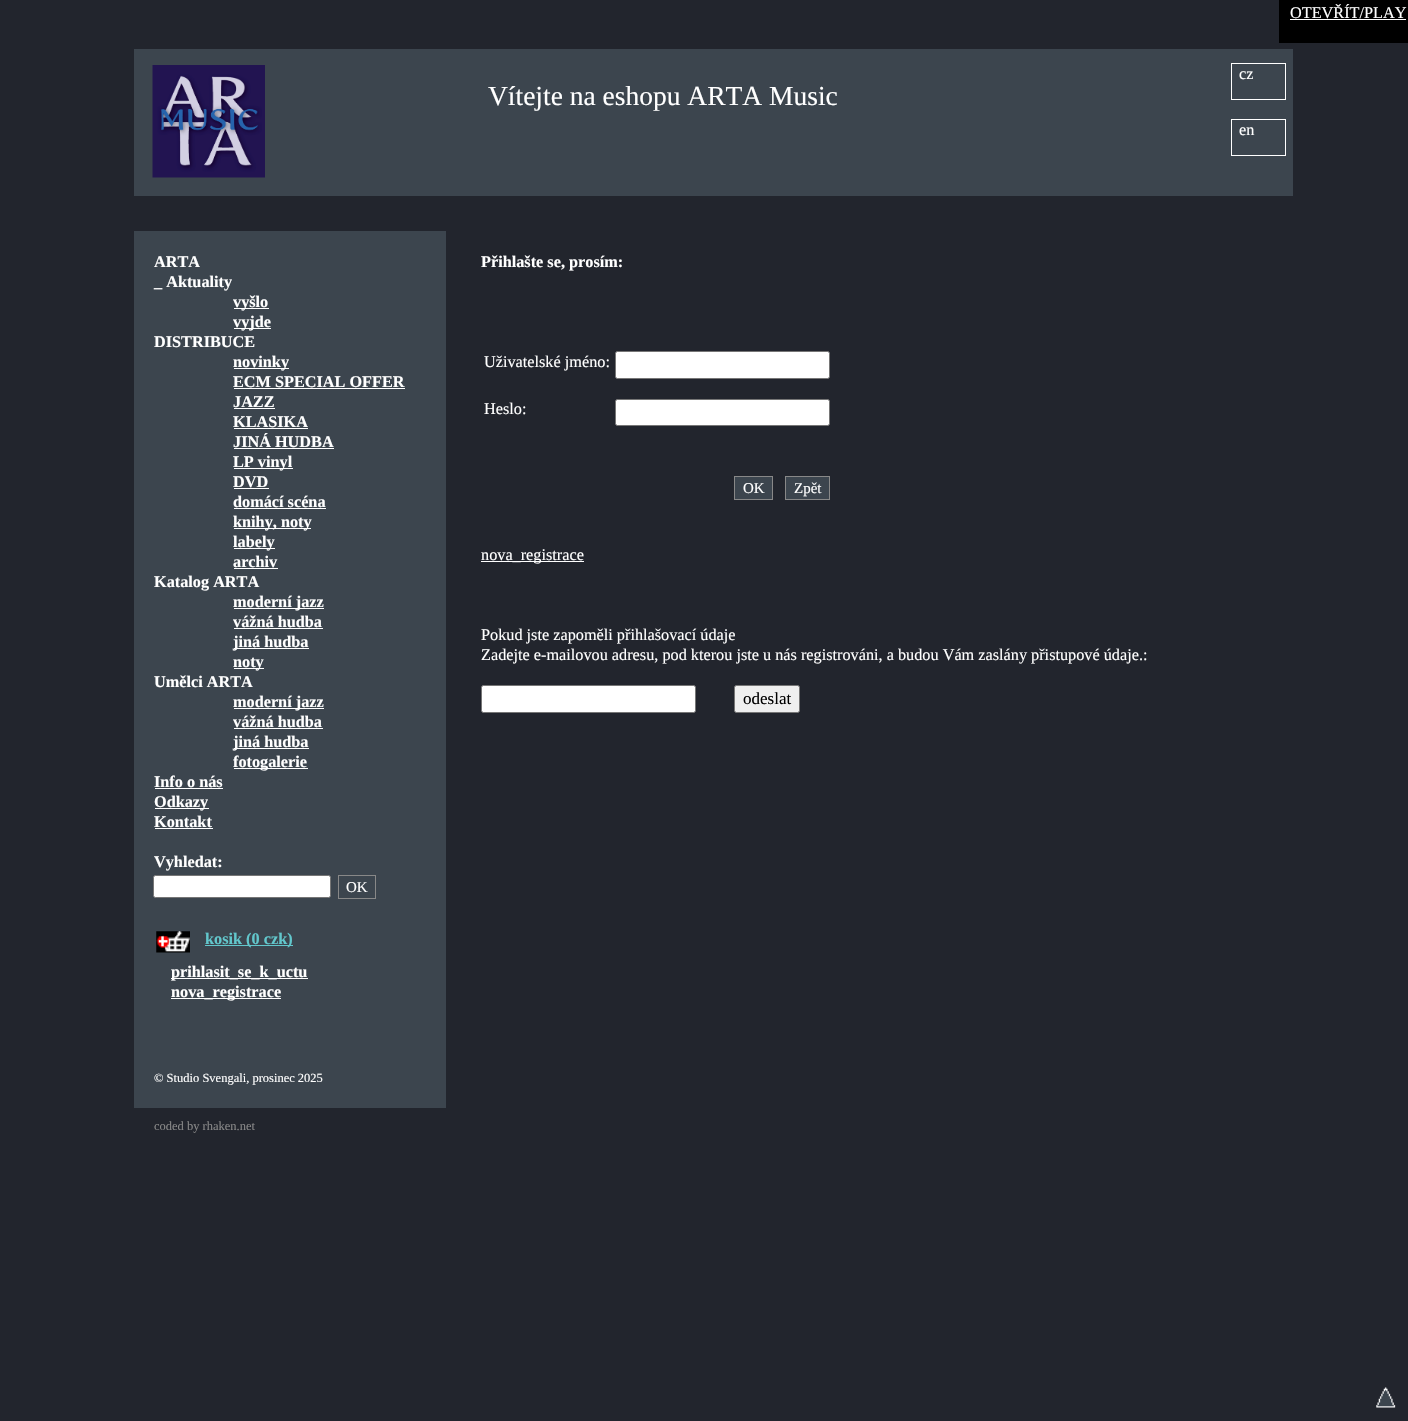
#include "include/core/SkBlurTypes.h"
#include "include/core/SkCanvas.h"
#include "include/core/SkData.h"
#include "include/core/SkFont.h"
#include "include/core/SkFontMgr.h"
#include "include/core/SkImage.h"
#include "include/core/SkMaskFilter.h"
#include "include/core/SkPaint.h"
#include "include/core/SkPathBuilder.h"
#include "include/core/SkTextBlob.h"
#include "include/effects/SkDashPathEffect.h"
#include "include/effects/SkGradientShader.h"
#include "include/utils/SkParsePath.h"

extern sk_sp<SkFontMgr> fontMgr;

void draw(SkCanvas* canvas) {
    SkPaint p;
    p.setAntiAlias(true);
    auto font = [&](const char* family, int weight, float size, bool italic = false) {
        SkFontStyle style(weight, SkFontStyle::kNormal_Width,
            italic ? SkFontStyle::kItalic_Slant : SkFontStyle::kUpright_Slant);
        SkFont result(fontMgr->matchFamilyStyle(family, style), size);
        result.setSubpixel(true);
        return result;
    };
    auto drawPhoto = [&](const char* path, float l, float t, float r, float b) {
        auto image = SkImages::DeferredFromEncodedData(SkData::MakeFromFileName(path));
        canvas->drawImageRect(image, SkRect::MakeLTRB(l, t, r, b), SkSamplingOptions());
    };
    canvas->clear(0xFF22252D);
    p.setColor(0xFF000000);
    canvas->drawRect(SkRect::MakeLTRB(1279, 0, 1408, 43), p);
    auto font1 = font("Liberation Serif", 400, 16.25f);
    p.setColor(0xFFFFFFFF);
    canvas->drawString("OTEVŘÍT/PLAY", 1290, 18, font1, p);
    canvas->drawRect(SkRect::MakeLTRB(1290, 19, 1406, 20), p);
    p.setColor(0xFF3C454E);
    canvas->drawRect(SkRect::MakeLTRB(134, 49, 1293, 196), p);
    drawPhoto("media/1.png", 152, 65, 265, 178);
    p.setStyle(SkPaint::kStroke_Style);
    p.setStrokeWidth(1);
    p.setColor(0xFFFFFFFF);
    canvas->drawRect(SkRect::MakeLTRB(1231.5f, 63.5f, 1285.5f, 99.5f), p);
    p.setStyle(SkPaint::kFill_Style);
    canvas->drawString("cz", 1239, 79, font1, p);
    auto font2 = font("Liberation Serif", 400, 27.5f);
    canvas->drawString("Vítejte na eshopu ARTA Music", 488, 105, font2, p);
    p.setStyle(SkPaint::kStroke_Style);
    canvas->drawRect(SkRect::MakeLTRB(1231.5f, 119.5f, 1285.5f, 155.5f), p);
    p.setStyle(SkPaint::kFill_Style);
    canvas->drawString("en", 1239, 135, font1, p);
    p.setColor(0xFF3C454E);
    canvas->drawRect(SkRect::MakeLTRB(134, 231, 446, 1108), p);
    auto font3 = font("Liberation Serif", 700, 16.25f);
    p.setColor(0xFFFFFFFF);
    canvas->drawString("ARTA", 154, 267, font3, p);
    canvas->drawString("_ Aktuality", 154, 287, font3, p);
    canvas->drawRect(SkRect::MakeLTRB(234, 308, 269, 309), p);
    canvas->drawString("vyšlo", 233, 307, font3, p);
    canvas->drawRect(SkRect::MakeLTRB(234, 328, 271, 329), p);
    canvas->drawString("vyjde", 233, 327, font3, p);
    canvas->drawString("DISTRIBUCE", 154, 347, font3, p);
    canvas->drawRect(SkRect::MakeLTRB(234, 368, 289, 369), p);
    canvas->drawString("novinky", 233, 367, font3, p);
    canvas->drawString("ECM SPECIAL OFFER", 233, 387, font3, p);
    canvas->drawRect(SkRect::MakeLTRB(234, 388, 405, 389), p);
    canvas->drawString("JAZZ", 233, 407, font3, p);
    canvas->drawRect(SkRect::MakeLTRB(234, 408, 275, 409), p);
    canvas->drawString("KLASIKA", 233, 427, font3, p);
    canvas->drawRect(SkRect::MakeLTRB(234, 428, 308, 429), p);
    canvas->drawString("JINÁ HUDBA", 233, 447, font3, p);
    canvas->drawRect(SkRect::MakeLTRB(234, 448, 334, 449), p);
    canvas->drawRect(SkRect::MakeLTRB(234, 468, 293, 469), p);
    canvas->drawString("LP vinyl", 233, 467, font3, p);
    canvas->drawString("DVD", 233, 487, font3, p);
    canvas->drawRect(SkRect::MakeLTRB(234, 488, 269, 489), p);
    canvas->drawString("domácí scéna", 233, 507, font3, p);
    canvas->drawRect(SkRect::MakeLTRB(234, 508, 326, 509), p);
    canvas->drawRect(SkRect::MakeLTRB(234, 528, 311, 529), p);
    canvas->drawString("knihy, noty", 233, 527, font3, p);
    canvas->drawRect(SkRect::MakeLTRB(234, 548, 275, 549), p);
    canvas->drawString("labely", 233, 547, font3, p);
    canvas->drawString("archiv", 233, 567, font3, p);
    canvas->drawRect(SkRect::MakeLTRB(234, 568, 278, 569), p);
    canvas->drawString("Katalog ARTA", 154, 587, font3, p);
    canvas->drawRect(SkRect::MakeLTRB(234, 608, 324, 609), p);
    canvas->drawString("moderní jazz", 233, 607, font3, p);
    canvas->drawString("vážná hudba", 233, 627, font3, p);
    canvas->drawRect(SkRect::MakeLTRB(234, 628, 323, 629), p);
    canvas->drawRect(SkRect::MakeLTRB(234, 648, 309, 649), p);
    canvas->drawString("jiná hudba", 233, 647, font3, p);
    canvas->drawRect(SkRect::MakeLTRB(234, 668, 264, 669), p);
    canvas->drawString("noty", 233, 667, font3, p);
    canvas->drawString("Umělci ARTA", 154, 687, font3, p);
    canvas->drawRect(SkRect::MakeLTRB(234, 708, 324, 709), p);
    canvas->drawString("moderní jazz", 233, 707, font3, p);
    canvas->drawString("vážná hudba", 233, 727, font3, p);
    canvas->drawRect(SkRect::MakeLTRB(234, 728, 323, 729), p);
    canvas->drawRect(SkRect::MakeLTRB(234, 748, 309, 749), p);
    canvas->drawString("jiná hudba", 233, 747, font3, p);
    canvas->drawRect(SkRect::MakeLTRB(234, 768, 308, 769), p);
    canvas->drawString("fotogalerie", 233, 767, font3, p);
    canvas->drawString("Info o nás", 154, 787, font3, p);
    canvas->drawRect(SkRect::MakeLTRB(155, 788, 223, 789), p);
    canvas->drawRect(SkRect::MakeLTRB(155, 808, 209, 809), p);
    canvas->drawString("Odkazy", 154, 807, font3, p);
    canvas->drawString("Kontakt", 154, 827, font3, p);
    canvas->drawRect(SkRect::MakeLTRB(155, 828, 213, 829), p);
    canvas->drawString("Vyhledat:", 154, 867, font3, p);
    canvas->drawRoundRect(SkRect::MakeLTRB(153.5f, 875.5f, 330.5f, 897.5f), 2, 2, p);
    p.setStyle(SkPaint::kStroke_Style);
    p.setColor(0xFF767676);
    canvas->drawRoundRect(SkRect::MakeLTRB(153.5f, 875.5f, 330.5f, 897.5f), 2, 2, p);
    p.setColor(0xFF888888);
    canvas->drawRect(SkRect::MakeLTRB(338.5f, 875.5f, 375.5f, 898.5f), p);
    auto font4 = font("Liberation Serif", 400, 15);
    p.setStyle(SkPaint::kFill_Style);
    p.setColor(0xFFFFFFFF);
    canvas->drawString("OK", 346, 892, font4, p);
    drawPhoto("media/2.png", 156, 931, 190, 953);
    p.setColor(0xFF62C7CC);
    canvas->drawRect(SkRect::MakeLTRB(205, 945, 293, 946), p);
    canvas->drawString("kosik (0 czk)", 205, 944, font3, p);
    p.setColor(0xFFFFFFFF);
    canvas->drawRect(SkRect::MakeLTRB(171, 978, 308, 979), p);
    canvas->drawString("prihlasit_se_k_uctu", 171, 977, font3, p);
    canvas->drawRect(SkRect::MakeLTRB(171, 998, 281, 999), p);
    canvas->drawString("nova_registrace", 171, 997, font3, p);
    canvas->drawString("Přihlašte se, prosím:", 481, 267, font3, p);
    canvas->drawString("Uživatelské jméno:", 484, 367, font1, p);
    canvas->drawRoundRect(SkRect::MakeLTRB(615.5f, 351.5f, 829.5f, 378.5f), 2, 2, p);
    p.setStyle(SkPaint::kStroke_Style);
    p.setColor(0xFF767676);
    canvas->drawRoundRect(SkRect::MakeLTRB(615.5f, 351.5f, 829.5f, 378.5f), 2, 2, p);
    p.setStyle(SkPaint::kFill_Style);
    p.setColor(0xFFFFFFFF);
    canvas->drawString("Heslo:", 484, 414, font1, p);
    canvas->drawRoundRect(SkRect::MakeLTRB(615.5f, 399.5f, 829.5f, 425.5f), 2, 2, p);
    p.setStyle(SkPaint::kStroke_Style);
    p.setColor(0xFF767676);
    canvas->drawRoundRect(SkRect::MakeLTRB(615.5f, 399.5f, 829.5f, 425.5f), 2, 2, p);
    p.setStyle(SkPaint::kFill_Style);
    p.setColor(0xFF3C454E);
    canvas->drawRect(SkRect::MakeLTRB(734.5f, 476.5f, 772.5f, 499.5f), p);
    p.setStyle(SkPaint::kStroke_Style);
    p.setColor(0xFF888888);
    canvas->drawRect(SkRect::MakeLTRB(734.5f, 476.5f, 772.5f, 499.5f), p);
    p.setStyle(SkPaint::kFill_Style);
    p.setColor(0xFFFFFFFF);
    canvas->drawString("OK", 743, 493, font4, p);
    p.setColor(0xFF3C454E);
    canvas->drawRect(SkRect::MakeLTRB(785.5f, 476.5f, 829.5f, 499.5f), p);
    p.setStyle(SkPaint::kStroke_Style);
    p.setColor(0xFF888888);
    canvas->drawRect(SkRect::MakeLTRB(785.5f, 476.5f, 829.5f, 499.5f), p);
    p.setStyle(SkPaint::kFill_Style);
    p.setColor(0xFFFFFFFF);
    canvas->drawString("Zpět", 794, 493, font4, p);
    canvas->drawRect(SkRect::MakeLTRB(481, 561, 584, 562), p);
    {
        const struct { const char* s; float x, y; } items[] = {
            {"nova_registrace", 481, 560},
            {"Pokud jste zapoměli přihlašovací údaje", 481, 640},
            {"Zadejte e-mailovou adresu, pod kterou jste u nás registrováni, a budou Vám zaslány přistupové údaje.:", 481, 660},
        };
        for (auto [s, x, y] : items) {
            canvas->drawString(s, x, y, font1, p);
        }
    }
    canvas->drawRoundRect(SkRect::MakeLTRB(481.5f, 685.5f, 695.5f, 712.5f), 2, 2, p);
    p.setStyle(SkPaint::kStroke_Style);
    p.setColor(0xFF767676);
    canvas->drawRoundRect(SkRect::MakeLTRB(481.5f, 685.5f, 695.5f, 712.5f), 2, 2, p);
    p.setStyle(SkPaint::kFill_Style);
    p.setColor(0xFFEFEFEF);
    canvas->drawRoundRect(SkRect::MakeLTRB(734.5f, 685.5f, 799.5f, 712.5f), 2, 2, p);
    p.setStyle(SkPaint::kStroke_Style);
    p.setColor(0xFF767676);
    canvas->drawRoundRect(SkRect::MakeLTRB(734.5f, 685.5f, 799.5f, 712.5f), 2, 2, p);
    auto font5 = font("Liberation Serif", 400, 17);
    p.setStyle(SkPaint::kFill_Style);
    p.setColor(0xFF000000);
    canvas->drawString("odeslat", 743, 704, font5, p);
    auto font6 = font("Liberation Serif", 400, 12.5f);
    p.setColor(0xFFFFFFFF);
    canvas->drawString("© Studio Svengali, prosinec 2025", 154, 1082, font6, p);
    p.setColor(0xFF888888);
    canvas->drawString("coded by rhaken.net", 154, 1130, font6, p);
    drawPhoto("media/3.png", 1376, 1387, 1396, 1408);
}
